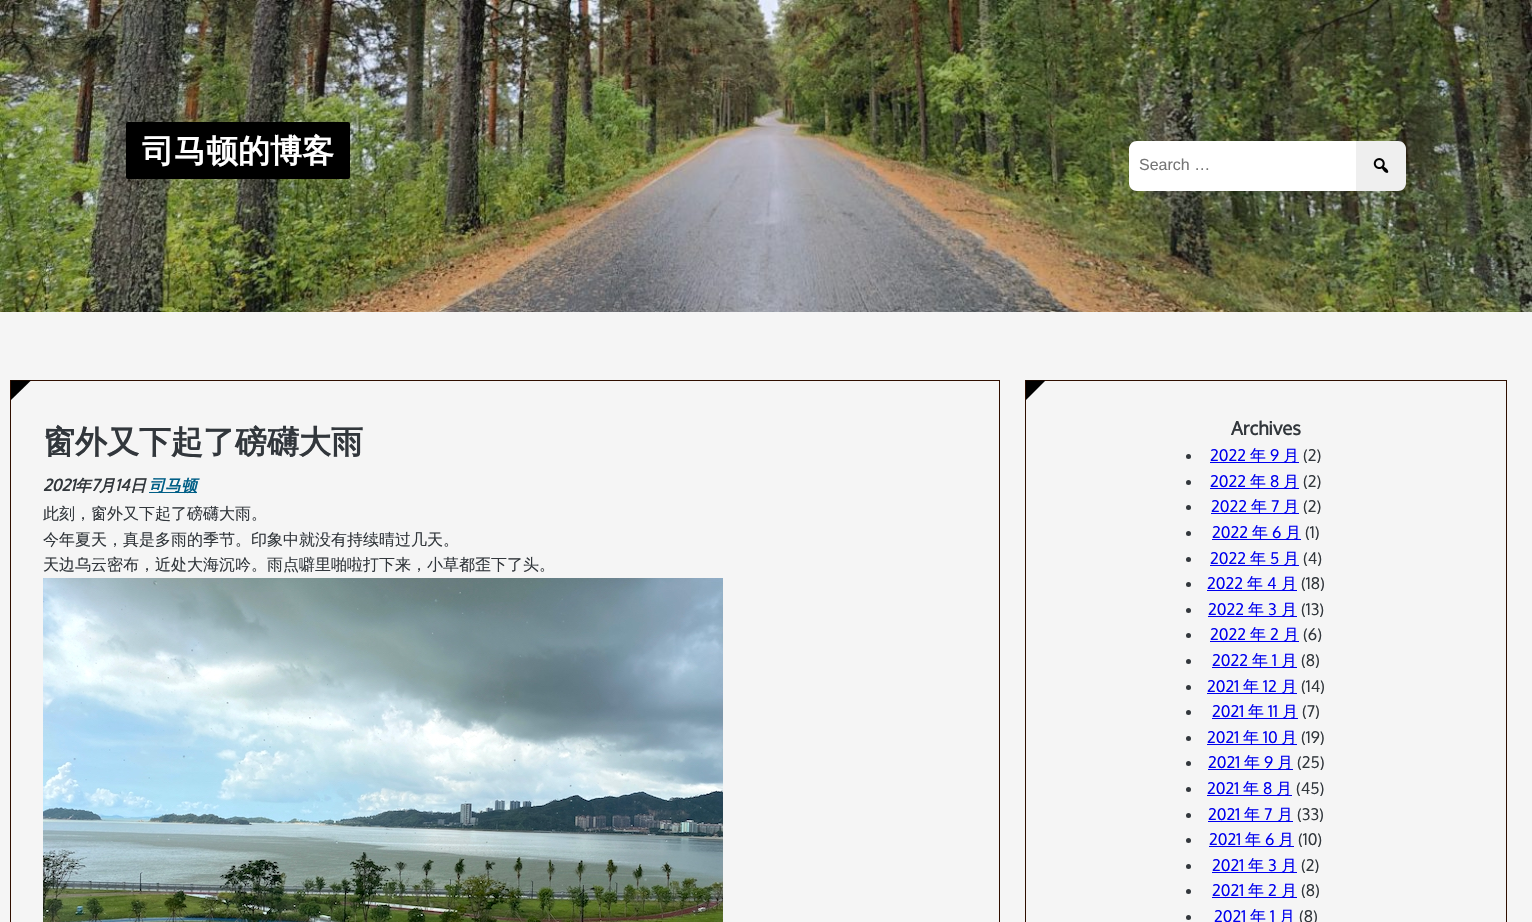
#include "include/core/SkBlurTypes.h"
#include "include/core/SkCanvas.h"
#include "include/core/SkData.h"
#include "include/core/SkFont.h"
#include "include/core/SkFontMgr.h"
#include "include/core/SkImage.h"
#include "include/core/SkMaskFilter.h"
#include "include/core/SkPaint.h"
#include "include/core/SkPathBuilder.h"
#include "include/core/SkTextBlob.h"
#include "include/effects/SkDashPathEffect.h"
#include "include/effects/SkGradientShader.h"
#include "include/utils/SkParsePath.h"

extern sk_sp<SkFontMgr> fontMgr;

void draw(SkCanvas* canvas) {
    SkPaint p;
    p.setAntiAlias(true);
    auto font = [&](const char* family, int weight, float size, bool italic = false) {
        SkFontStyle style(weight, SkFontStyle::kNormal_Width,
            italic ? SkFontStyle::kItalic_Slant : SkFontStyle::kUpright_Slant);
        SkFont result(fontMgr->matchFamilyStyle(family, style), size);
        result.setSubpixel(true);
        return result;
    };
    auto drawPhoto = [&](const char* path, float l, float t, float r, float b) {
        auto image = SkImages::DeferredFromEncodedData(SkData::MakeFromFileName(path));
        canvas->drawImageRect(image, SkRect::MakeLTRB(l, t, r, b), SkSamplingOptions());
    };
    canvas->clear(0xFFF5F5F5);
    drawPhoto("media/1.png", 0, 0, 1532, 312);
    p.setColor(0xFF000000);
    canvas->drawRoundRect(SkRect::MakeLTRB(126, 122, 350, 179), 2, 2, p);
    auto font1 = font("WenQuanYi Zen Hei", 700, 32);
    p.setColor(0xFFFFFFFF);
    canvas->drawString("司马顿的博客", 142, 162, font1, p);
    canvas->drawPath(SkPathBuilder().moveTo(1137, 141).lineTo(1356, 141).lineTo(1356, 191).lineTo(1137, 191).cubicTo(1132.5f, 191, 1129, 187.5f, 1129, 183).lineTo(1129, 149).cubicTo(1129, 144.5f, 1132.5f, 141, 1137, 141).close().detach(), p);
    auto font2 = font("Liberation Sans", 400, 16);
    p.setColor(0xFF757575);
    canvas->drawString("Search …", 1139, 170, font2, p);
    p.setColor(0xFFEFEFEF);
    canvas->drawPath(SkPathBuilder().moveTo(1356, 141).lineTo(1398, 141).cubicTo(1402.5f, 141, 1406, 144.5f, 1406, 149).lineTo(1406, 183).cubicTo(1406, 187.5f, 1402.5f, 191, 1398, 191).lineTo(1356, 191).close().detach(), p);
    drawPhoto("media/2.png", 1373, 158, 1389, 173);
    p.setStyle(SkPaint::kStroke_Style);
    p.setStrokeWidth(1);
    p.setColor(0xFF300F00);
    canvas->drawRect(SkRect::MakeLTRB(10.5f, 380.5f, 999.5f, 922.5f), p);
    p.setStyle(SkPaint::kFill_Style);
    p.setColor(0xFF000000);
    canvas->drawPath(SkPathBuilder().moveTo(11, 380.5f).lineTo(11, 400).lineTo(31, 380.5f).close().detach(), p);
    p.setColor(0xFF32373C);
    canvas->drawString("窗外又下起了磅礴大雨", 43, 453, font1, p);
    auto font3 = font("Oxygen", 700, 16, true);
    canvas->drawString("2021", 43, 491, font3, p);
    auto font4 = font("WenQuanYi Zen Hei", 700, 16, true);
    canvas->drawString("年", 75, 491, font4, p);
    canvas->drawString("7", 91, 491, font3, p);
    canvas->drawString("月", 99, 491, font4, p);
    canvas->drawString("14", 115, 491, font3, p);
    canvas->drawString("日", 130, 491, font4, p);
    p.setColor(0xFF005E86);
    canvas->drawRect(SkRect::MakeLTRB(149, 492, 197, 493), p);
    canvas->drawString("司马顿", 149, 491, font4, p);
    auto font5 = font("WenQuanYi Zen Hei", 500, 16);
    p.setColor(0xFF32373C);
    {
        const struct { const char* s; float x, y; } items[] = {
            {"此刻，窗外又下起了磅礴大雨。", 43, 519},
            {"今年夏天，真是多雨的季节。印象中就没有持续晴过几天。", 43, 545},
            {"天边乌云密布，近处大海沉吟。雨点噼里啪啦打下来，小草都歪下了头。", 43, 570},
        };
        for (auto [s, x, y] : items) {
            canvas->drawString(s, x, y, font5, p);
        }
    }
    drawPhoto("media/3.png", 43, 578, 723, 922);
    p.setStyle(SkPaint::kStroke_Style);
    p.setColor(0xFF300F00);
    canvas->drawRect(SkRect::MakeLTRB(1025.5f, 380.5f, 1506.5f, 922.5f), p);
    p.setStyle(SkPaint::kFill_Style);
    p.setColor(0xFF000000);
    canvas->drawPath(SkPathBuilder().moveTo(1026, 400).lineTo(1026, 380.5f).lineTo(1045.5f, 380.5f).close().detach(), p);
    auto font6 = font("Oxygen", 700, 18.5f);
    p.setColor(0xFF32373C);
    canvas->drawString("Archives", 1231, 435, font6, p);
    canvas->drawCircle(1188.5f, 456.5f, 2.5f, p);
    auto font7 = font("Oxygen", 400, 16);
    p.setColor(0xFF0000EE);
    canvas->drawString("2022", 1210, 461, font7, p);
    canvas->drawRect(SkRect::MakeLTRB(1210, 462, 1299, 463), p);
    canvas->drawString("年", 1250, 461, font5, p);
    canvas->drawString("9", 1270, 461, font7, p);
    canvas->drawString("月", 1283, 461, font5, p);
    p.setColor(0xFF32373C);
    canvas->drawString("(2)", 1303, 461, font7, p);
    canvas->drawCircle(1188.5f, 482.5f, 2.5f, p);
    p.setColor(0xFF0000EE);
    canvas->drawString("2022", 1210, 487, font7, p);
    canvas->drawRect(SkRect::MakeLTRB(1210, 488, 1299, 489), p);
    canvas->drawString("年", 1250, 487, font5, p);
    canvas->drawString("8", 1270, 487, font7, p);
    canvas->drawString("月", 1283, 487, font5, p);
    p.setColor(0xFF32373C);
    canvas->drawString("(2)", 1303, 487, font7, p);
    canvas->drawCircle(1188.5f, 507.5f, 2.5f, p);
    p.setColor(0xFF0000EE);
    canvas->drawString("2022", 1211, 512, font7, p);
    canvas->drawRect(SkRect::MakeLTRB(1211, 513, 1299, 514), p);
    canvas->drawString("年", 1251, 512, font5, p);
    canvas->drawString("7", 1271, 512, font7, p);
    canvas->drawString("月", 1283, 512, font5, p);
    p.setColor(0xFF32373C);
    canvas->drawString("(2)", 1303, 512, font7, p);
    canvas->drawCircle(1188.5f, 533.5f, 2.5f, p);
    p.setColor(0xFF0000EE);
    canvas->drawString("2022", 1212, 538, font7, p);
    canvas->drawRect(SkRect::MakeLTRB(1212, 539, 1301, 540), p);
    canvas->drawString("年", 1252, 538, font5, p);
    canvas->drawString("6", 1272, 538, font7, p);
    canvas->drawString("月", 1285, 538, font5, p);
    p.setColor(0xFF32373C);
    canvas->drawString("(1)", 1305, 538, font7, p);
    canvas->drawCircle(1188.5f, 559.5f, 2.5f, p);
    p.setColor(0xFF0000EE);
    canvas->drawString("2022", 1210, 564, font7, p);
    canvas->drawRect(SkRect::MakeLTRB(1210, 565, 1299, 566), p);
    canvas->drawString("年", 1250, 564, font5, p);
    canvas->drawString("5", 1270, 564, font7, p);
    canvas->drawString("月", 1283, 564, font5, p);
    p.setColor(0xFF32373C);
    canvas->drawString("(4)", 1303, 564, font7, p);
    canvas->drawCircle(1188.5f, 584.5f, 2.5f, p);
    p.setColor(0xFF0000EE);
    canvas->drawString("2022", 1207, 589, font7, p);
    canvas->drawRect(SkRect::MakeLTRB(1207, 590, 1297, 591), p);
    canvas->drawString("年", 1247, 589, font5, p);
    canvas->drawString("4", 1267, 589, font7, p);
    canvas->drawString("月", 1281, 589, font5, p);
    p.setColor(0xFF32373C);
    canvas->drawString("(18)", 1301, 589, font7, p);
    canvas->drawCircle(1188.5f, 610.5f, 2.5f, p);
    p.setColor(0xFF0000EE);
    canvas->drawString("2022", 1208, 615, font7, p);
    canvas->drawRect(SkRect::MakeLTRB(1208, 616, 1297, 617), p);
    canvas->drawString("年", 1248, 615, font5, p);
    canvas->drawString("3", 1268, 615, font7, p);
    canvas->drawString("月", 1281, 615, font5, p);
    p.setColor(0xFF32373C);
    canvas->drawString("(13)", 1301, 615, font7, p);
    canvas->drawCircle(1188.5f, 635.5f, 2.5f, p);
    p.setColor(0xFF0000EE);
    canvas->drawString("2022", 1210, 640, font7, p);
    canvas->drawRect(SkRect::MakeLTRB(1210, 641, 1299, 642), p);
    canvas->drawString("年", 1250, 640, font5, p);
    canvas->drawString("2", 1270, 640, font7, p);
    canvas->drawString("月", 1283, 640, font5, p);
    p.setColor(0xFF32373C);
    canvas->drawString("(6)", 1303, 640, font7, p);
    canvas->drawCircle(1188.5f, 661.5f, 2.5f, p);
    p.setColor(0xFF0000EE);
    canvas->drawString("2022", 1212, 666, font7, p);
    canvas->drawRect(SkRect::MakeLTRB(1212, 667, 1297, 668), p);
    canvas->drawString("年", 1252, 666, font5, p);
    canvas->drawString("1", 1272, 666, font7, p);
    canvas->drawString("月", 1281, 666, font5, p);
    p.setColor(0xFF32373C);
    canvas->drawString("(8)", 1301, 666, font7, p);
    canvas->drawCircle(1188.5f, 687.5f, 2.5f, p);
    p.setColor(0xFF0000EE);
    canvas->drawString("2021", 1207, 692, font7, p);
    canvas->drawRect(SkRect::MakeLTRB(1207, 693, 1297, 694), p);
    canvas->drawString("年", 1243, 692, font5, p);
    canvas->drawString("12", 1263, 692, font7, p);
    canvas->drawString("月", 1281, 692, font5, p);
    p.setColor(0xFF32373C);
    canvas->drawString("(14)", 1301, 692, font7, p);
    canvas->drawCircle(1188.5f, 712.5f, 2.5f, p);
    p.setColor(0xFF0000EE);
    canvas->drawString("2021", 1212, 717, font7, p);
    canvas->drawRect(SkRect::MakeLTRB(1212, 718, 1298, 719), p);
    canvas->drawString("年", 1248, 717, font5, p);
    canvas->drawString("11", 1268, 717, font7, p);
    canvas->drawString("月", 1282, 717, font5, p);
    p.setColor(0xFF32373C);
    canvas->drawString("(7)", 1302, 717, font7, p);
    canvas->drawCircle(1188.5f, 738.5f, 2.5f, p);
    p.setColor(0xFF0000EE);
    canvas->drawString("2021", 1207, 743, font7, p);
    canvas->drawRect(SkRect::MakeLTRB(1207, 744, 1297, 745), p);
    canvas->drawString("年", 1243, 743, font5, p);
    canvas->drawString("10", 1263, 743, font7, p);
    canvas->drawString("月", 1281, 743, font5, p);
    p.setColor(0xFF32373C);
    canvas->drawString("(19)", 1301, 743, font7, p);
    canvas->drawCircle(1188.5f, 763.5f, 2.5f, p);
    p.setColor(0xFF0000EE);
    canvas->drawString("2021", 1208, 768, font7, p);
    canvas->drawRect(SkRect::MakeLTRB(1208, 769, 1293, 770), p);
    canvas->drawString("年", 1244, 768, font5, p);
    canvas->drawString("9", 1264, 768, font7, p);
    canvas->drawString("月", 1277, 768, font5, p);
    p.setColor(0xFF32373C);
    canvas->drawString("(25)", 1297, 768, font7, p);
    canvas->drawCircle(1188.5f, 789.5f, 2.5f, p);
    p.setColor(0xFF0000EE);
    canvas->drawString("2021", 1207, 794, font7, p);
    canvas->drawRect(SkRect::MakeLTRB(1207, 795, 1292, 796), p);
    canvas->drawString("年", 1243, 794, font5, p);
    canvas->drawString("8", 1263, 794, font7, p);
    canvas->drawString("月", 1276, 794, font5, p);
    p.setColor(0xFF32373C);
    canvas->drawString("(45)", 1296, 794, font7, p);
    canvas->drawCircle(1188.5f, 815.5f, 2.5f, p);
    p.setColor(0xFF0000EE);
    canvas->drawString("2021", 1208, 820, font7, p);
    canvas->drawRect(SkRect::MakeLTRB(1208, 821, 1293, 822), p);
    canvas->drawString("年", 1244, 820, font5, p);
    canvas->drawString("7", 1264, 820, font7, p);
    canvas->drawString("月", 1277, 820, font5, p);
    p.setColor(0xFF32373C);
    canvas->drawString("(33)", 1297, 820, font7, p);
    canvas->drawCircle(1188.5f, 840.5f, 2.5f, p);
    p.setColor(0xFF0000EE);
    canvas->drawString("2021", 1209, 845, font7, p);
    canvas->drawRect(SkRect::MakeLTRB(1209, 846, 1294, 847), p);
    canvas->drawString("年", 1245, 845, font5, p);
    canvas->drawString("6", 1265, 845, font7, p);
    canvas->drawString("月", 1278, 845, font5, p);
    p.setColor(0xFF32373C);
    canvas->drawString("(10)", 1298, 845, font7, p);
    canvas->drawCircle(1188.5f, 866.5f, 2.5f, p);
    p.setColor(0xFF0000EE);
    canvas->drawString("2021", 1212, 871, font7, p);
    canvas->drawRect(SkRect::MakeLTRB(1212, 872, 1297, 873), p);
    canvas->drawString("年", 1248, 871, font5, p);
    canvas->drawString("3", 1268, 871, font7, p);
    canvas->drawString("月", 1281, 871, font5, p);
    p.setColor(0xFF32373C);
    canvas->drawString("(2)", 1301, 871, font7, p);
    canvas->drawCircle(1188.5f, 891.5f, 2.5f, p);
    p.setColor(0xFF0000EE);
    canvas->drawString("2021", 1212, 896, font7, p);
    canvas->drawRect(SkRect::MakeLTRB(1212, 897, 1297, 898), p);
    canvas->drawString("年", 1248, 896, font5, p);
    canvas->drawString("2", 1268, 896, font7, p);
    canvas->drawString("月", 1281, 896, font5, p);
    p.setColor(0xFF32373C);
    canvas->drawString("(8)", 1301, 896, font7, p);
    canvas->drawCircle(1188.5f, 917.5f, 2.5f, p);
    p.setColor(0xFF0000EE);
    canvas->drawString("2021", 1214, 922, font7, p);
    canvas->drawString("年", 1250, 922, font5, p);
    canvas->drawString("1", 1270, 922, font7, p);
    canvas->drawString("月", 1279, 922, font5, p);
    p.setColor(0xFF32373C);
    canvas->drawString("(8)", 1299, 922, font7, p);
}
